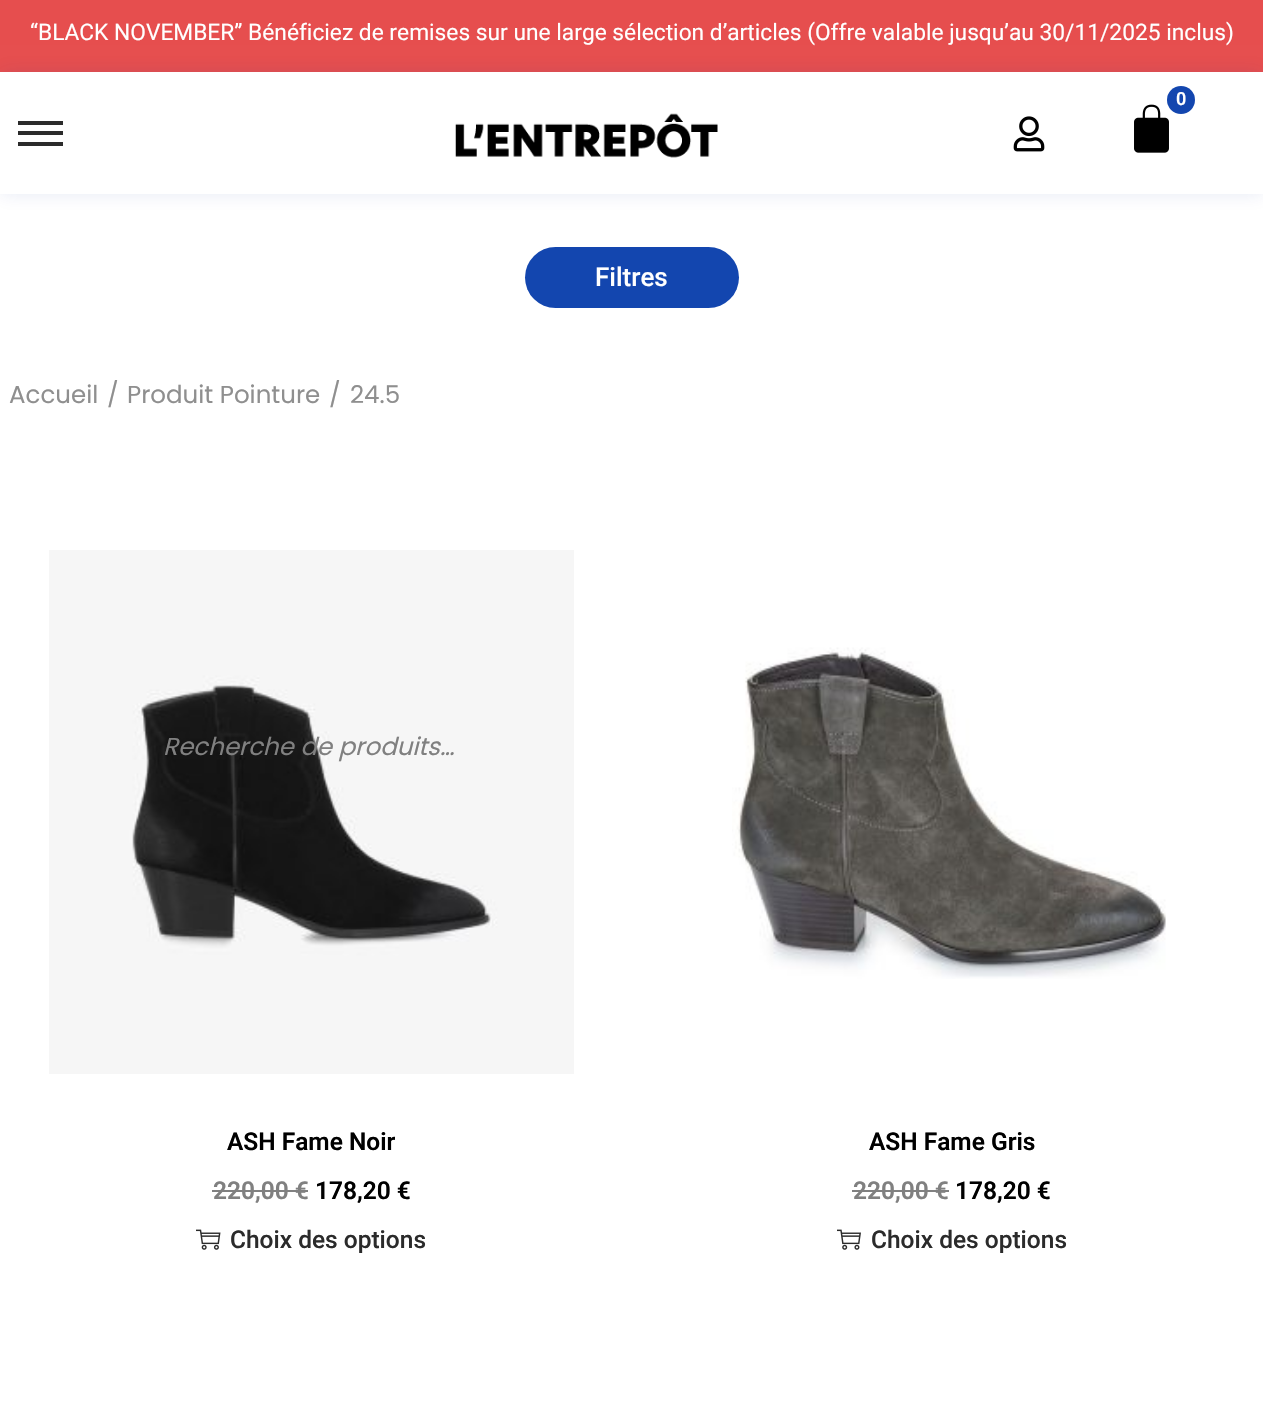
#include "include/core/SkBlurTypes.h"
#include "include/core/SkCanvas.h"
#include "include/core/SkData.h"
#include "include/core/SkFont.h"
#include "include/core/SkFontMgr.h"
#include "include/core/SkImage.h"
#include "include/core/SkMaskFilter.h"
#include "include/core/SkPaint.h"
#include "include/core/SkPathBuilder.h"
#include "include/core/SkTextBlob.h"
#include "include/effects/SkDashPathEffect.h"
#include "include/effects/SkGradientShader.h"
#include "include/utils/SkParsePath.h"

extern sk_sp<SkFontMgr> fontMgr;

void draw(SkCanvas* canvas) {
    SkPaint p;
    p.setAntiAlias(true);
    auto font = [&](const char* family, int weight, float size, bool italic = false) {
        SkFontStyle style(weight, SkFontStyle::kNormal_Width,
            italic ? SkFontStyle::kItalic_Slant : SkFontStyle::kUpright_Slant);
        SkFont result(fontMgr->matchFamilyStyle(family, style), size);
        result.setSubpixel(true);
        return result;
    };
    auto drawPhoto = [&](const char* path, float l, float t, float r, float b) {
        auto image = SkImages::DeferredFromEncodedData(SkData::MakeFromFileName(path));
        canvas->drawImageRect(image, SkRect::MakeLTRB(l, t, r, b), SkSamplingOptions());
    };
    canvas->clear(0xFFFFFFFF);
    p.setColor(0xFFE64E4E);
    canvas->drawRect(SkRect::MakeLTRB(0, 0, 1263, 72), p);
    auto font1 = font("Roboto", 400, 22.75f);
    p.setColor(0xFFFFFFFF);
    canvas->drawString("“BLACK NOVEMBER” Bénéficiez de remises sur une large sélection d’articles (Offre valable jusqu’au 30/11/2025 inclus)", 30, 40, font1, p);
    canvas->save();
    canvas->clipPath(SkPathBuilder(SkPathFillType::kEvenOdd).moveTo(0, 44).lineTo(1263, 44).lineTo(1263, 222).lineTo(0, 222).close().moveTo(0, 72).lineTo(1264, 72).lineTo(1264, 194).lineTo(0, 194).close().detach(), true);
    p.setColor(0x1A0F339B);
    p.setMaskFilter(SkMaskFilter::MakeBlur(kNormal_SkBlurStyle, 9));
    canvas->drawRect(SkRect::MakeLTRB(0, 72, 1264, 194), p);
    p.setMaskFilter(nullptr);
    canvas->restore();
    drawPhoto("media/1.png", 1134, 104, 1169, 153);
    p.setColor(0xFF1346AF);
    canvas->drawCircle(1181, 100, 14, p);
    auto font2 = font("Roboto", 600, 18);
    p.setColor(0xFFFFFFFF);
    canvas->drawString("0", 1176, 105, font2, p);
    {
        const struct { float l, t, r, b; SkColor color; } items[] = {
            {18, 131, 63, 135, 0xFF2B2B2B},
            {18, 121, 63, 125, 0xFF2B2B2B},
            {18, 142, 63, 146, 0xFF2B2B2B},
        };
        for (auto [l, t, r, b, color] : items) {
            p.setColor(color);
            canvas->drawRect(SkRect::MakeLTRB(l, t, r, b), p);
        }
    }
    drawPhoto("media/2.png", 455, 113, 718, 158);
    drawPhoto("media/3.png", 1013, 116, 1045, 152);
    p.setColor(0xFF1346AF);
    canvas->drawRoundRect(SkRect::MakeLTRB(525, 247, 739, 308), 30.5f, 30.5f, p);
    auto font3 = font("Roboto", 500, 26);
    p.setColor(0xFFFFFFFF);
    canvas->drawString("Filtres", 595, 286, font3, p);
    auto font4 = font("Poppins", 400, 24.5f);
    p.setColor(0xFF8F8F8F);
    {
        const struct { const char* s; float x, y; } items[] = {
            {"Accueil", 9, 403},
            {"/", 107, 403},
            {"Produit Pointure", 127, 403},
            {"/", 329, 403},
            {"24.5", 350, 403},
        };
        for (auto [s, x, y] : items) {
            canvas->drawString(s, x, y, font4, p);
        }
    }
    drawPhoto("media/4.png", 49, 550, 574, 1074);
    auto font5 = font("Roboto", 600, 24.5f);
    p.setColor(0xFF000000);
    canvas->drawString("ASH Fame Noir", 227, 1150, font5, p);
    p.setColor(0xFF808080);
    canvas->drawString("220,00 €", 213, 1199, font5, p);
    canvas->drawRect(SkRect::MakeLTRB(212, 1190, 308, 1192), p);
    p.setColor(0xFF000000);
    canvas->drawString("178,20 €", 315, 1199, font5, p);
    drawPhoto("media/5.png", 196, 1229, 221, 1250);
    auto font6 = font("Roboto", 500, 24.5f);
    p.setColor(0xFF2B2B2B);
    canvas->drawString("Choix des options", 230, 1248, font6, p);
    drawPhoto("media/6.png", 732, 647, 1166, 979);
    p.setColor(0xFF000000);
    canvas->drawString("ASH Fame Gris", 869, 1150, font5, p);
    p.setColor(0xFF808080);
    canvas->drawString("220,00 €", 853, 1199, font5, p);
    canvas->drawRect(SkRect::MakeLTRB(852, 1190, 949, 1192), p);
    p.setColor(0xFF000000);
    canvas->drawString("178,20 €", 955, 1199, font5, p);
    drawPhoto("media/7.png", 837, 1229, 861, 1250);
    p.setColor(0xFF2B2B2B);
    canvas->drawString("Choix des options", 871, 1248, font6, p);
    auto font7 = font("Poppins", 400, 24.5f, true);
    p.setColor(0xFF808080);
    canvas->drawString("Recherche de produits…", 163, 755, font7, p);
}
